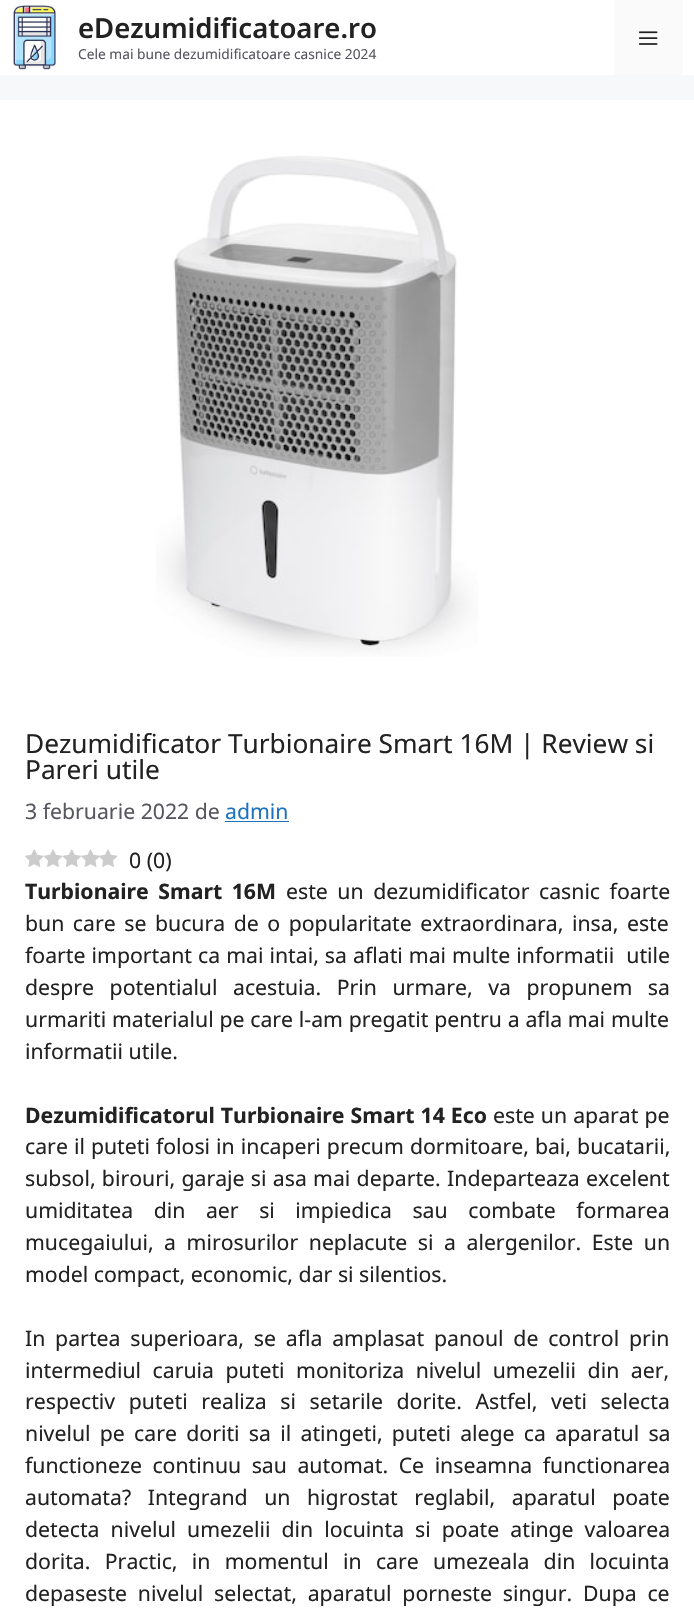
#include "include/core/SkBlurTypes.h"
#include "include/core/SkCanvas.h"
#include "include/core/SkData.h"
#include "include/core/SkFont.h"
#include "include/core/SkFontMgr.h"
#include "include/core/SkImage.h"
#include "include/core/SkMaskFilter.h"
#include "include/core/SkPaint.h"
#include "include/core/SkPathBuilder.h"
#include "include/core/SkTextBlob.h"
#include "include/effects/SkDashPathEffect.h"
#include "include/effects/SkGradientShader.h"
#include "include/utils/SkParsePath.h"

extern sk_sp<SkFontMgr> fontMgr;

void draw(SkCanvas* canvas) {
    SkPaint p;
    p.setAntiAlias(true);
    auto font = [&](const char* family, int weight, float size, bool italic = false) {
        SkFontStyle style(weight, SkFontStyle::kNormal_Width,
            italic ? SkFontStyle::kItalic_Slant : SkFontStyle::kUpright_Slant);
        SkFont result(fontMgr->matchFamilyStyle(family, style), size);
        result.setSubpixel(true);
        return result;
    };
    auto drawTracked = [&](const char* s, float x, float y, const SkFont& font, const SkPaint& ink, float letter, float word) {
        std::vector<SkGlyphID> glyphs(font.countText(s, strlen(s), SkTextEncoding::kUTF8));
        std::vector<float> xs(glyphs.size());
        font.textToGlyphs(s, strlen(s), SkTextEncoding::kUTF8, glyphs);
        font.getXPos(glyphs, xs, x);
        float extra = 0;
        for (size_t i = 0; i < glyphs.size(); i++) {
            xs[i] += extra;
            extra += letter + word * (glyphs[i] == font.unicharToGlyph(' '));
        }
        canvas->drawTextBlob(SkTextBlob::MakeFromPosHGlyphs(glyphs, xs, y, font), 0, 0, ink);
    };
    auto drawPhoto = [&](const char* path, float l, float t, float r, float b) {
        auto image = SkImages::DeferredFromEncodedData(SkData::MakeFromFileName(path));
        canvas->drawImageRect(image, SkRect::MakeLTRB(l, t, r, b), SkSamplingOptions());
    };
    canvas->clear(0xFFF7F8F9);
    p.setColor(0xFFFFFFFF);
    canvas->drawRect(SkRect::MakeLTRB(0, 0, 694, 75), p);
    drawPhoto("media/1.png", 12, 5, 56, 70);
    auto font1 = font("Noto Sans", 600, 27.5f);
    p.setColor(0xFF222222);
    canvas->drawString("eDezumidificatoare.ro", 78, 38, font1, p);
    auto font2 = font("Noto Sans", 400, 13.75f);
    p.setColor(0xFF575760);
    canvas->drawString("Cele mai bune dezumidificatoare casnice 2024", 78, 59, font2, p);
    p.setColor(0xFFFAFAFA);
    canvas->drawRect(SkRect::MakeLTRB(614, 0, 683, 75), p);
    drawPhoto("media/2.png", 639, 31, 658, 45);
    p.setColor(0xFFFFFFFF);
    canvas->drawRect(SkRect::MakeLTRB(0, 100, 694, 1623), p);
    drawPhoto("media/3.png", 156, 155, 478, 657);
    auto font3 = font("Noto Sans", 400, 26.25f);
    p.setColor(0xFF222222);
    canvas->drawString("Dezumidificator Turbionaire Smart 16M | Review si", 25, 753, font3, p);
    canvas->drawString("Pareri utile", 25, 779, font3, p);
    auto font4 = font("Noto Sans", 400, 21.25f);
    p.setColor(0xFF575760);
    canvas->drawString("3 februarie 2022 de", 25, 819, font4, p);
    p.setColor(0xFF1E73BE);
    canvas->drawString("admin", 225, 819, font4, p);
    canvas->drawRect(SkRect::MakeLTRB(225, 821, 289, 822), p);
    drawPhoto("media/4.png", 25, 849, 44, 867);
    drawPhoto("media/5.png", 44, 849, 63, 867);
    drawPhoto("media/6.png", 62, 849, 81, 867);
    drawPhoto("media/7.png", 81, 849, 100, 867);
    drawPhoto("media/8.png", 99, 849, 118, 867);
    p.setColor(0xFF222222);
    canvas->drawString("0 (0)", 129, 868, font4, p);
    auto font5 = font("Noto Sans", 700, 21.25f);
    drawTracked("Turbionaire Smart 16M", 25, 899, font5, p, 0, 4);
    drawTracked("este un dezumidificator casnic foarte", 286, 899, font4, p, 0, 4);
    drawTracked("bun care se bucura de o popularitate extraordinara, insa, este", 25, 931, font4, p, 0, 3);
    drawTracked("foarte important ca mai intai, sa aflati mai multe informatii  utile", 25, 963, font4, p, 0, 0.5f);
    drawTracked("despre potentialul acestuia. Prin urmare, va propunem sa", 25, 995, font4, p, 0, 10);
    drawTracked("urmariti materialul pe care l-am pregatit pentru a afla mai multe", 25, 1027, font4, p, 0, 0.25f);
    canvas->drawString("informatii utile.", 25, 1059, font4, p);
    drawTracked("Dezumidificatorul Turbionaire Smart 14 Eco", 25, 1123, font5, p, 0, 0.5f);
    drawTracked("este un aparat pe", 493, 1123, font4, p, 0, 0.5f);
    drawTracked("care il puteti folosi in incaperi precum dormitoare, bai, bucatarii,", 25, 1154, font4, p, 0, 0.5f);
    drawTracked("subsol, birouri, garaje si asa mai departe. Indeparteaza excelent", 25, 1186, font4, p, 0, 0.75f);
    drawTracked("umiditatea din aer si impiedica sau combate formarea", 25, 1218, font4, p, 0, 15);
    drawTracked("mucegaiului, a mirosurilor neplacute si a alergenilor. Este un", 25, 1250, font4, p, 0, 5);
    canvas->drawString("model compact, economic, dar si silentios.", 25, 1282, font4, p);
    drawTracked("In partea superioara, se afla amplasat panoul de control prin", 25, 1346, font4, p, 0, 4.25f);
    drawTracked("intermediul caruia puteti monitoriza nivelul umezelii din aer,", 25, 1378, font4, p, 0, 6);
    drawTracked("respectiv puteti realiza si setarile dorite. Astfel, veti selecta", 25, 1409, font4, p, 0, 8);
    drawTracked("nivelul pe care doriti sa il atingeti, puteti alege ca aparatul sa", 25, 1441, font4, p, 0, 3.75f);
    drawTracked("functioneze continuu sau automat. Ce inseamna functionarea", 25, 1473, font4, p, 0, 5);
    drawTracked("automata? Integrand un higrostat reglabil, aparatul poate", 25, 1505, font4, p, 0, 11);
    drawTracked("detecta nivelul umezelii din locuinta si poate atinge valoarea", 25, 1537, font4, p, 0, 5.5f);
    drawTracked("dorita. Practic, in momentul in care umezeala din locuinta", 25, 1569, font4, p, 0, 8.75f);
    drawTracked("depaseste nivelul selectat, aparatul porneste singur. Dupa ce", 25, 1601, font4, p, 0, 5.25f);
}
